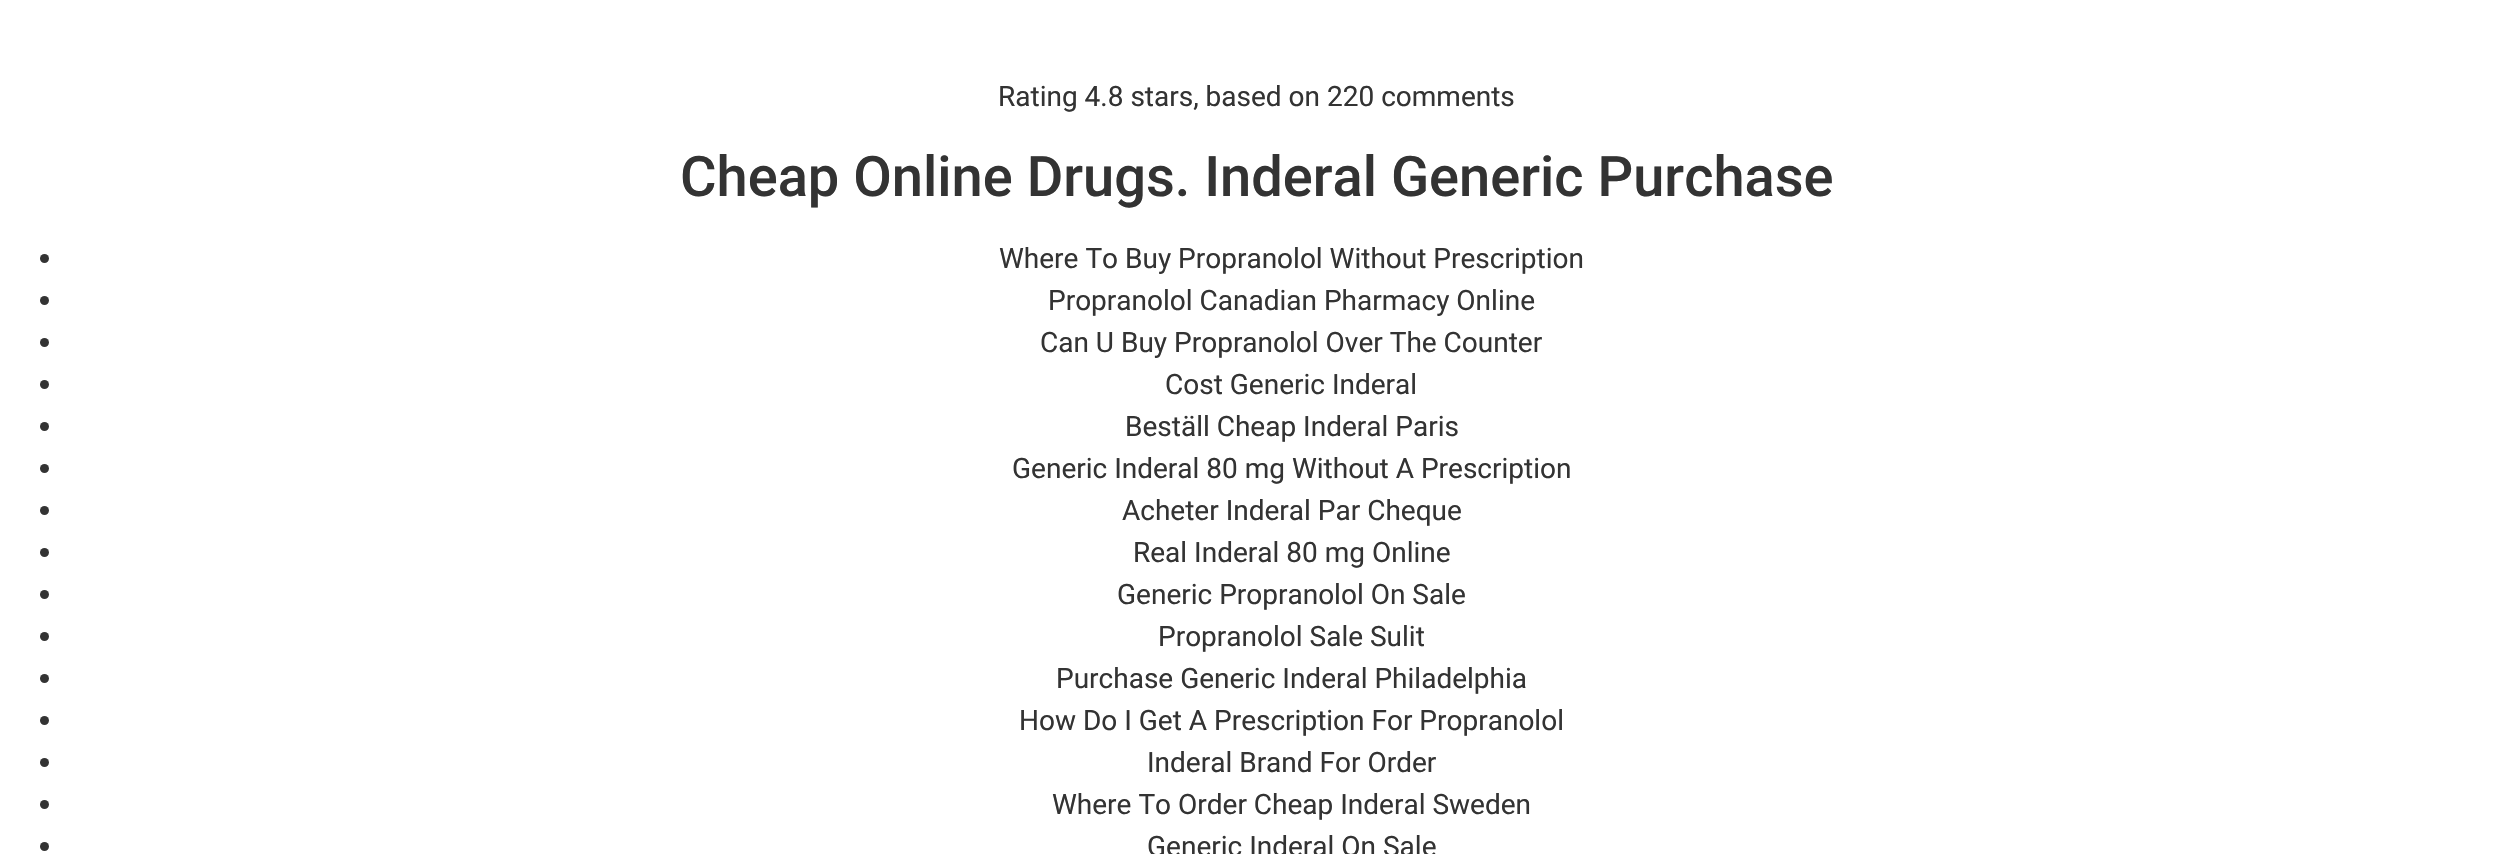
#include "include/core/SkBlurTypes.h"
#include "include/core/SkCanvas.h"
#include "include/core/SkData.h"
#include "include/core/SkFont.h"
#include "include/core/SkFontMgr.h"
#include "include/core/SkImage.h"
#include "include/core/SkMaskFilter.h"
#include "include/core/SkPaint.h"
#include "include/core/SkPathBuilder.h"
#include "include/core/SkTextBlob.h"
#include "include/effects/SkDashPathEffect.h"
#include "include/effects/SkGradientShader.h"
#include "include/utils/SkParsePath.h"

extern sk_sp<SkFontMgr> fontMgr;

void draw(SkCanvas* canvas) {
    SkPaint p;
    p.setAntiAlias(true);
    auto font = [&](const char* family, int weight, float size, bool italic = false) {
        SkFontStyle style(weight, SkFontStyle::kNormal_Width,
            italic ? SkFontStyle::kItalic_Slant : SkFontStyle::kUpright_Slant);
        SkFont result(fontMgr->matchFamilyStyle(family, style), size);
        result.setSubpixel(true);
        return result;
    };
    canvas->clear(0xFFFFFFFF);
    auto font1 = font("Roboto", 400, 28);
    p.setColor(0xFF333333);
    canvas->drawString("Rating 4.8 stars, based on 220 comments", 998, 106, font1, p);
    auto font2 = font("Roboto", 500, 56);
    canvas->drawString("Cheap Online Drugs. Inderal Generic Purchase", 680, 196, font2, p);
    canvas->drawCircle(44.5f, 258.5f, 4.5f, p);
    canvas->drawString("Where To Buy Propranolol Without Prescription", 999, 268, font1, p);
    canvas->drawCircle(44.5f, 300.5f, 4.5f, p);
    canvas->drawString("Propranolol Canadian Pharmacy Online", 1048, 310, font1, p);
    canvas->drawCircle(44.5f, 342.5f, 4.5f, p);
    canvas->drawString("Can U Buy Propranolol Over The Counter", 1040, 352, font1, p);
    canvas->drawCircle(44.5f, 384.5f, 4.5f, p);
    canvas->drawString("Cost Generic Inderal", 1165, 394, font1, p);
    canvas->drawCircle(44.5f, 426.5f, 4.5f, p);
    canvas->drawString("Beställ Cheap Inderal Paris", 1125, 436, font1, p);
    canvas->drawCircle(44.5f, 468.5f, 4.5f, p);
    canvas->drawString("Generic Inderal 80 mg Without A Prescription", 1012, 478, font1, p);
    canvas->drawCircle(44.5f, 510.5f, 4.5f, p);
    canvas->drawString("Acheter Inderal Par Cheque", 1122, 520, font1, p);
    canvas->drawCircle(44.5f, 552.5f, 4.5f, p);
    canvas->drawString("Real Inderal 80 mg Online", 1133, 562, font1, p);
    canvas->drawCircle(44.5f, 594.5f, 4.5f, p);
    canvas->drawString("Generic Propranolol On Sale", 1117, 604, font1, p);
    canvas->drawCircle(44.5f, 636.5f, 4.5f, p);
    canvas->drawString("Propranolol Sale Sulit", 1158, 646, font1, p);
    canvas->drawCircle(44.5f, 678.5f, 4.5f, p);
    canvas->drawString("Purchase Generic Inderal Philadelphia", 1056, 688, font1, p);
    canvas->drawCircle(44.5f, 720.5f, 4.5f, p);
    canvas->drawString("How Do I Get A Prescription For Propranolol", 1019, 730, font1, p);
    canvas->drawCircle(44.5f, 762.5f, 4.5f, p);
    canvas->drawString("Inderal Brand For Order", 1147, 772, font1, p);
    canvas->drawCircle(44.5f, 804.5f, 4.5f, p);
    canvas->drawString("Where To Order Cheap Inderal Sweden", 1052, 814, font1, p);
    canvas->drawCircle(44.5f, 846.5f, 4.5f, p);
    canvas->drawString("Generic Inderal On Sale", 1147, 856, font1, p);
}
